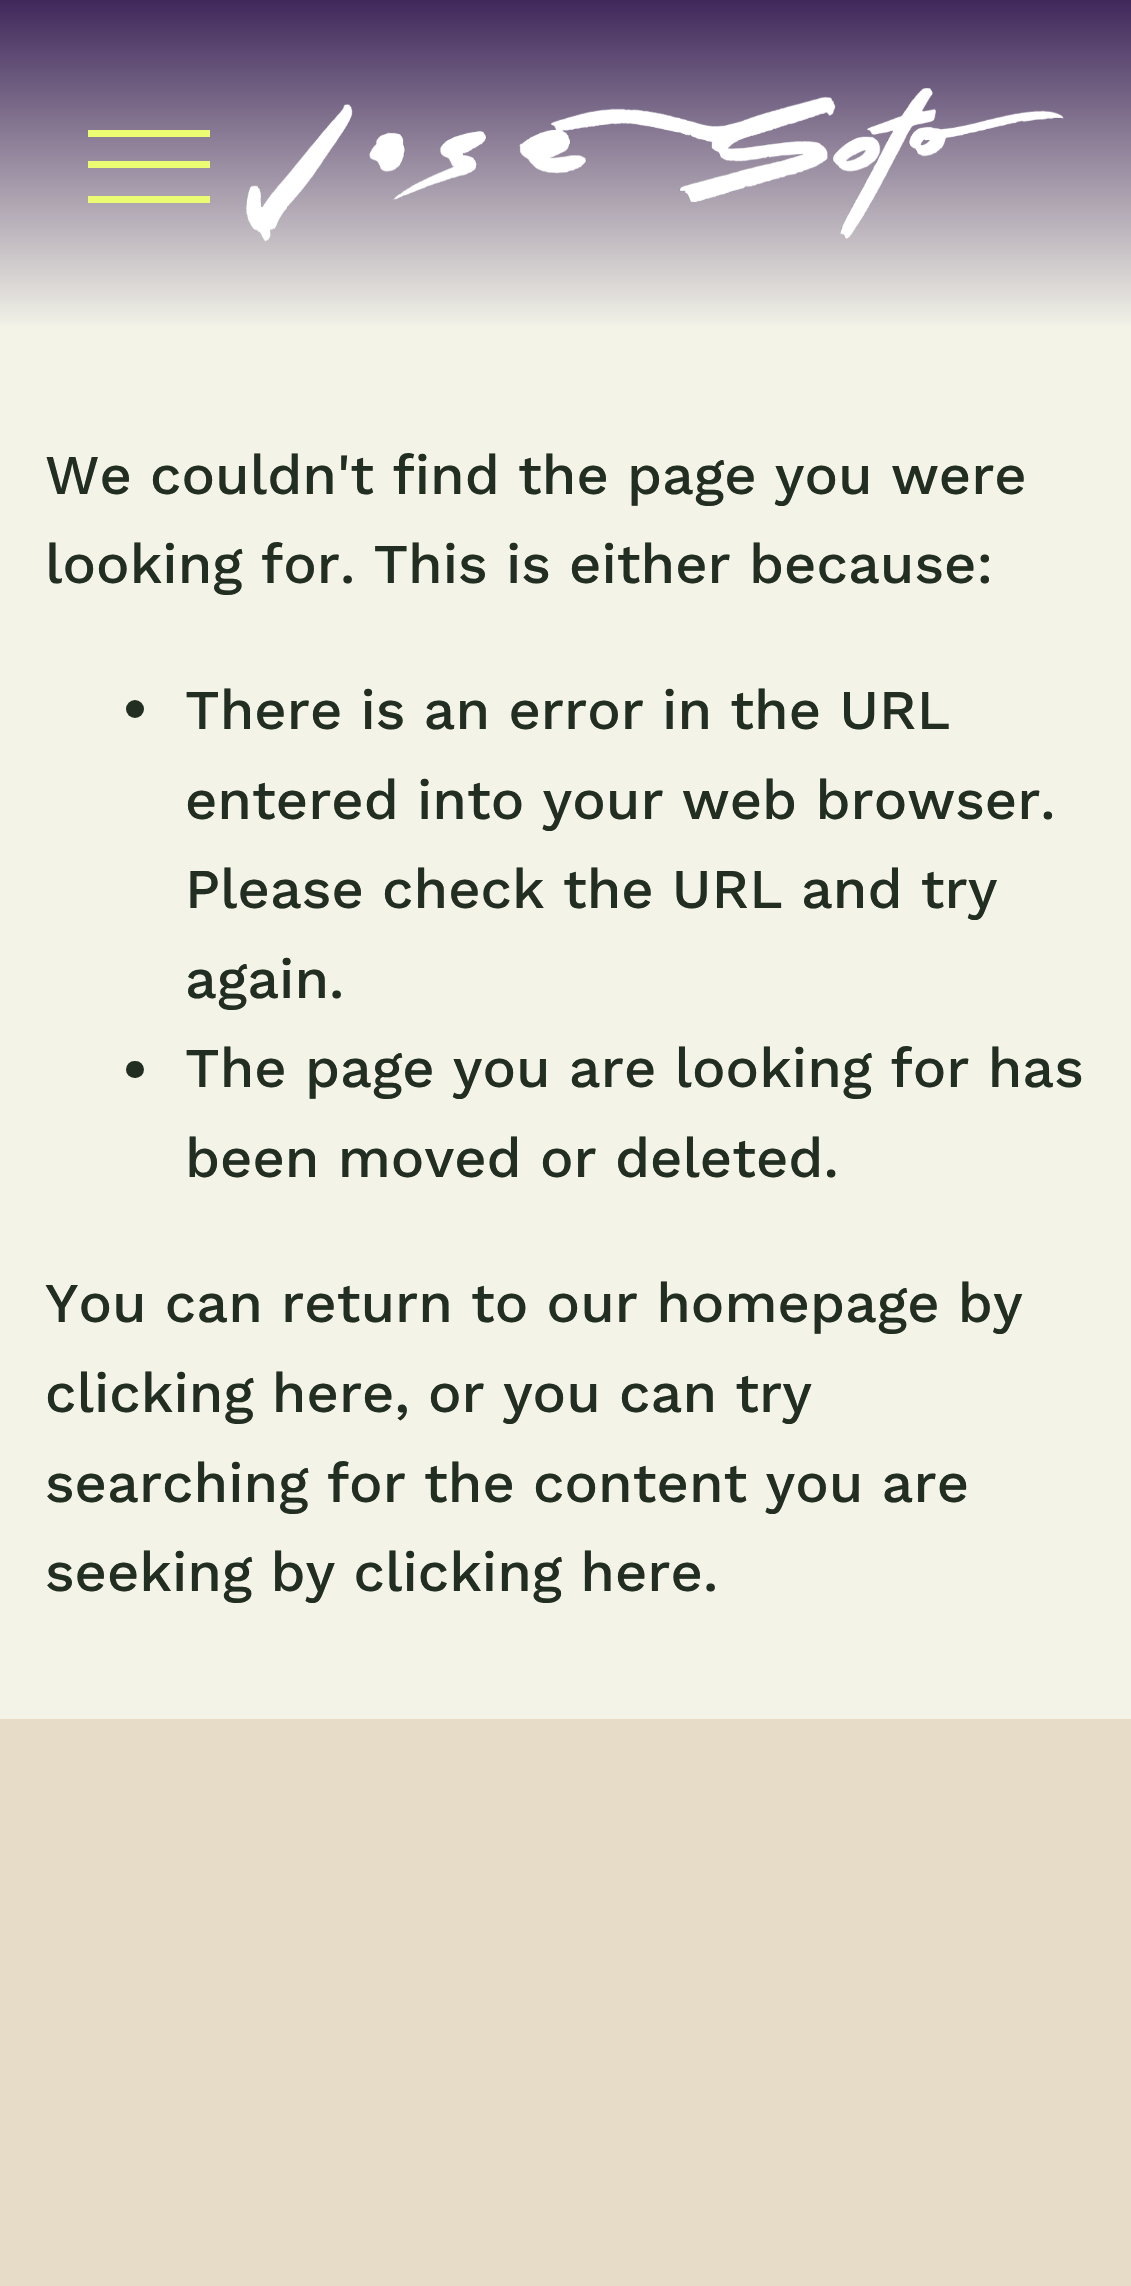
#include "include/core/SkBlurTypes.h"
#include "include/core/SkCanvas.h"
#include "include/core/SkData.h"
#include "include/core/SkFont.h"
#include "include/core/SkFontMgr.h"
#include "include/core/SkImage.h"
#include "include/core/SkMaskFilter.h"
#include "include/core/SkPaint.h"
#include "include/core/SkPathBuilder.h"
#include "include/core/SkTextBlob.h"
#include "include/effects/SkDashPathEffect.h"
#include "include/effects/SkGradientShader.h"
#include "include/utils/SkParsePath.h"

extern sk_sp<SkFontMgr> fontMgr;

void draw(SkCanvas* canvas) {
    SkPaint p;
    p.setAntiAlias(true);
    auto font = [&](const char* family, int weight, float size, bool italic = false) {
        SkFontStyle style(weight, SkFontStyle::kNormal_Width,
            italic ? SkFontStyle::kItalic_Slant : SkFontStyle::kUpright_Slant);
        SkFont result(fontMgr->matchFamilyStyle(family, style), size);
        result.setSubpixel(true);
        return result;
    };
    auto drawPhoto = [&](const char* path, float l, float t, float r, float b) {
        auto image = SkImages::DeferredFromEncodedData(SkData::MakeFromFileName(path));
        canvas->drawImageRect(image, SkRect::MakeLTRB(l, t, r, b), SkSamplingOptions());
    };
    canvas->clear(0xFFF4F3E8);
    {
        const SkColor colors[] = {0xFF40285B, 0xFFF3F3E8};
        const float stops[] = {0, 1};
        const SkPoint ends[] = {{567, 0}, {567, 329}};
        p.setShader(SkGradientShader::MakeLinear(ends, colors, stops, 2, SkTileMode::kClamp));
        p.setAlpha(255);
    }
    canvas->drawRect(SkRect::MakeLTRB(0, 0, 1131, 326), p);
    p.setShader(nullptr);
    {
        const struct { float l, t, r, b; SkColor color; } items[] = {
            {88, 130, 210, 137, 0xFFEBFC72},
            {88, 161, 210, 168, 0xFFEBFC72},
            {88, 196, 210, 203, 0xFFEBFC72},
        };
        for (auto [l, t, r, b, color] : items) {
            p.setColor(color);
            canvas->drawRect(SkRect::MakeLTRB(l, t, r, b), p);
        }
    }
    drawPhoto("media/1.png", 246, 88, 1064, 242);
    auto font1 = font("Work Sans", 500, 56);
    p.setColor(0xFF212E21);
    canvas->drawString("We couldn't find the page you were", 45, 494, font1, p);
    canvas->drawString("looking for. This is either because:", 45, 583, font1, p);
    canvas->drawCircle(135, 709, 9, p);
    {
        const struct { const char* s; float x, y; } items[] = {
            {"There is an error in the URL", 185, 729},
            {"entered into your web browser.", 185, 819},
            {"Please check the URL and try", 185, 908},
            {"again.", 185, 998},
        };
        for (auto [s, x, y] : items) {
            canvas->drawString(s, x, y, font1, p);
        }
    }
    canvas->drawRoundRect(SkRect::MakeLTRB(126, 1061, 144, 1078), 8.5f, 8.5f, p);
    {
        const struct { const char* s; float x, y; } items[] = {
            {"The page you are looking for has", 185, 1087},
            {"been moved or deleted.", 185, 1177},
            {"You can return to our homepage by", 45, 1322},
            {"clicking here, or you can try", 45, 1412},
            {"searching for the content you are", 45, 1502},
            {"seeking by clicking here.", 45, 1591},
        };
        for (auto [s, x, y] : items) {
            canvas->drawString(s, x, y, font1, p);
        }
    }
    p.setColor(0xFFE6DCC8);
    canvas->drawRect(SkRect::MakeLTRB(0, 1719, 1131, 2286), p);
}
